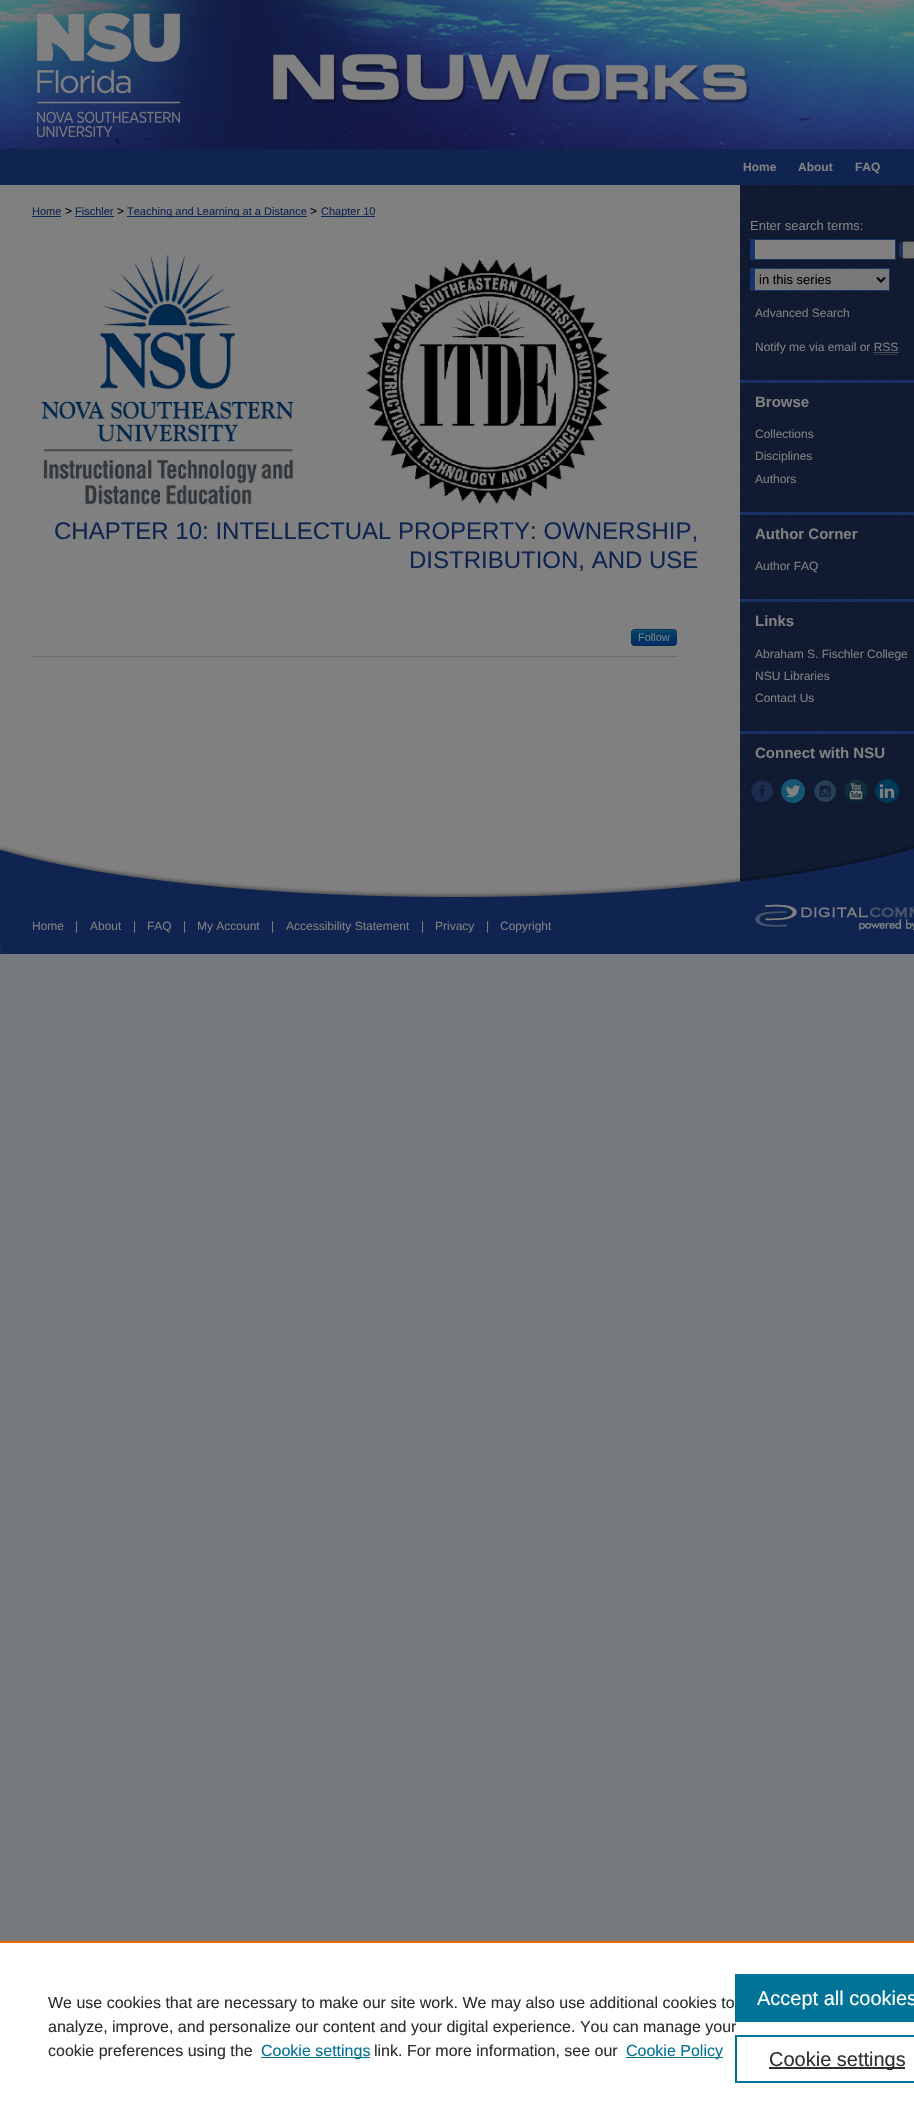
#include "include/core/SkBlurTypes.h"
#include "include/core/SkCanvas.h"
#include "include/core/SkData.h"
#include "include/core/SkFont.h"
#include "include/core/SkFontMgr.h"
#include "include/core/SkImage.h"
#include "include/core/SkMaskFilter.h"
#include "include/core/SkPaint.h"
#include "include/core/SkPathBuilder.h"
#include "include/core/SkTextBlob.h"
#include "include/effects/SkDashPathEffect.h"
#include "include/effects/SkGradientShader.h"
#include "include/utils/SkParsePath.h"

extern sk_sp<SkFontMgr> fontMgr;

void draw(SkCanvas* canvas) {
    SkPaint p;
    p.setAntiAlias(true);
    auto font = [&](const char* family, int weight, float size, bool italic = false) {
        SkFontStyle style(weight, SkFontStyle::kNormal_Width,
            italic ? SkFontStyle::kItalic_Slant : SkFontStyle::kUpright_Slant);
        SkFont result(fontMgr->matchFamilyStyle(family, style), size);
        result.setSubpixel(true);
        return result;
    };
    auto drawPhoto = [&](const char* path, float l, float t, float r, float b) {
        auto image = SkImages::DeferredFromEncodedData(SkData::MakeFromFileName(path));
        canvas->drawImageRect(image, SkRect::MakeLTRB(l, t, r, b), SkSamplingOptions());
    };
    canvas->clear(0xFF75787D);
    drawPhoto("media/1.png", 0, 149, 914, 185);
    drawPhoto("media/2.png", 0, 0, 240, 149);
    drawPhoto("media/3.png", 240, 0, 914, 149);
    auto font1 = font("Liberation Sans", 700, 12);
    p.setColor(0xFF808080);
    {
        const struct { const char* s; float x, y; } items[] = {
            {"Home", 743, 171},
            {"About", 798, 171},
            {"FAQ", 855, 171},
        };
        for (auto [s, x, y] : items) {
            canvas->drawString(s, x, y, font1, p);
        }
    }
    drawPhoto("media/4.png", 0, 185, 914, 813);
    auto font2 = font("Liberation Sans", 400, 11);
    p.setColor(0xFF0F2550);
    canvas->drawString("Home", 32, 215, font2, p);
    canvas->drawRect(SkRect::MakeLTRB(32, 216, 61, 217), p);
    auto font3 = font("Liberation Sans", 400, 12);
    p.setColor(0xFF000000);
    canvas->drawString(">", 65, 215, font3, p);
    p.setColor(0xFF0F2550);
    canvas->drawString("Fischler", 75, 215, font2, p);
    canvas->drawRect(SkRect::MakeLTRB(75, 216, 114, 217), p);
    p.setColor(0xFF000000);
    canvas->drawString(">", 117, 215, font3, p);
    p.setColor(0xFF0F2550);
    canvas->drawRect(SkRect::MakeLTRB(127, 216, 307, 217), p);
    canvas->drawString("Teaching and Learning at a Distance", 127, 215, font2, p);
    p.setColor(0xFF000000);
    canvas->drawString(">", 310, 215, font3, p);
    p.setColor(0xFF0F2550);
    canvas->drawRect(SkRect::MakeLTRB(321, 216, 375, 217), p);
    canvas->drawString("Chapter 10", 321, 215, font2, p);
    drawPhoto("media/5.png", 41, 254, 610, 505);
    auto font4 = font("Liberation Sans", 400, 24);
    canvas->drawString("CHAPTER 10: INTELLECTUAL PROPERTY: OWNERSHIP,", 54, 539, font4, p);
    canvas->drawString("DISTRIBUTION, AND USE", 409, 568, font4, p);
    p.setColor(0xFF6F6F6F);
    canvas->drawRect(SkRect::MakeLTRB(32, 656, 677, 657), p);
    p.setColor(0xFF003A66);
    canvas->drawRoundRect(SkRect::MakeLTRB(631, 629, 677, 646), 4, 4, p);
    canvas->save();
    canvas->clipPath(SkPathBuilder().moveTo(635, 629).lineTo(673, 629).cubicTo(675, 629, 677, 631, 677, 633).lineTo(677, 642).cubicTo(677, 644, 675, 646, 673, 646).lineTo(635, 646).cubicTo(633, 646, 631, 644, 631, 642).lineTo(631, 633).cubicTo(631, 631, 633, 629, 635, 629).close().detach(), true);
    {
        const SkColor colors[] = {0xFF004466, 0xFF002B66};
        const float stops[] = {0, 1};
        const SkPoint ends[] = {{654, 630}, {654, 645}};
        p.setShader(SkGradientShader::MakeLinear(ends, colors, stops, 2, SkTileMode::kClamp));
        p.setAlpha(255);
    }
    canvas->drawRect(SkRect::MakeLTRB(631, 630, 677, 645), p);
    canvas->restore();
    p.setShader(nullptr);
    p.setColor(0x33808080);
    canvas->drawPath(SkPathBuilder().moveTo(635, 631).lineTo(660, 631).cubicTo(674, 631, 676, 627, 676, 642).cubicTo(676, 631, 679, 630, 667, 630).lineTo(641, 630).cubicTo(634, 630, 632, 629, 632, 636).lineTo(632, 643).cubicTo(632, 640, 631, 631, 635, 631).close().detach(), p);
    p.setStyle(SkPaint::kStroke_Style);
    p.setStrokeWidth(1);
    p.setColor(0x40000000);
    canvas->drawPath(SkPathBuilder().moveTo(675.5f, 644.5f).cubicTo(675, 645, 674, 645.5f, 673, 645.5f).lineTo(635, 645.5f).cubicTo(634, 645.5f, 633, 645, 632.5f, 644.5f).detach(), p);
    p.setColor(0x1A000000);
    canvas->drawPath(SkPathBuilder().moveTo(632.5f, 644.5f).cubicTo(631, 642.5f, 631.5f, 639.5f, 631.5f, 637.5f).cubicTo(631.5f, 628.5f, 632, 629.5f, 641.5f, 629.5f).lineTo(666.5f, 629.5f).cubicTo(676, 629.5f, 676.5f, 628.5f, 676.5f, 637.5f).cubicTo(676.5f, 639.5f, 677, 642.5f, 675.5f, 644.5f).detach(), p);
    p.setStyle(SkPaint::kFill_Style);
    p.setColor(0xFF808080);
    canvas->drawString("Follow", 638, 641, font2, p);
    auto font5 = font("Liberation Sans", 400, 13);
    canvas->drawString("Enter search terms:", 750, 230, font5, p);
    {
        const struct { float l, t, r, b; SkColor color; } items[] = {
            {750, 239, 896, 260, 0xFF1A3366},
            {899, 243, 902, 257, 0xFF1A3366},
            {755, 240, 895, 259, 0xFF808080},
        };
        for (auto [l, t, r, b, color] : items) {
            p.setColor(color);
            canvas->drawRect(SkRect::MakeLTRB(l, t, r, b), p);
        }
    }
    p.setColor(0xFF787878);
    canvas->drawRoundRect(SkRect::MakeLTRB(902.5f, 241.5f, 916.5f, 258.5f), 1.5f, 1.5f, p);
    p.setStyle(SkPaint::kStroke_Style);
    p.setColor(0xFF3B3B3B);
    canvas->drawRoundRect(SkRect::MakeLTRB(902.5f, 241.5f, 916.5f, 258.5f), 1.5f, 1.5f, p);
    p.setStyle(SkPaint::kFill_Style);
    {
        const struct { float l, t, r, b; SkColor color; } items[] = {
            {755, 269, 889, 290, 0xFF787878},
            {750, 268, 890, 269, 0xFF1A3366},
            {889, 268, 890, 291, 0xFF1A3366},
            {750, 290, 890, 291, 0xFF1A3366},
            {750, 268, 755, 291, 0xFF1A3366},
        };
        for (auto [l, t, r, b, color] : items) {
            p.setColor(color);
            canvas->drawRect(SkRect::MakeLTRB(l, t, r, b), p);
        }
    }
    p.setStyle(SkPaint::kStroke_Style);
    p.setStrokeWidth(2);
    p.setColor(0xFF000000);
    canvas->drawPath(SkPathBuilder().moveTo(877, 277.5f).lineTo(881, 281.5f).lineTo(885, 277.5f).detach(), p);
    p.setStyle(SkPaint::kFill_Style);
    canvas->drawString("in this series", 759, 284, font5, p);
    p.setColor(0xFF808080);
    canvas->drawString("Advanced Search", 755, 317, font3, p);
    canvas->drawString("Notify me via email or RSS", 755, 351, font3, p);
    p.setStyle(SkPaint::kStroke_Style);
    p.setStrokeWidth(1);
    p.setPathEffect(SkDashPathEffect::Make({{1, 1}}, 0));
    canvas->drawPath(SkPathBuilder().moveTo(873.5f, 352.5f).lineTo(898.5f, 352.5f).detach(), p);
    p.setPathEffect(nullptr);
    p.setColor(0xFF4D4D4D);
    p.setPathEffect(SkDashPathEffect::Make({{1, 1}}, 0));
    canvas->drawPath(SkPathBuilder().moveTo(874, 354.5f).lineTo(898, 354.5f).detach(), p);
    p.setPathEffect(nullptr);
    p.setStyle(SkPaint::kFill_Style);
    p.setColor(0xFF193264);
    canvas->drawRect(SkRect::MakeLTRB(740, 380, 914, 383), p);
    auto font6 = font("Liberation Sans", 700, 15);
    p.setColor(0xFF808080);
    canvas->drawString("Browse", 755, 407, font6, p);
    {
        const struct { const char* s; float x, y; } items[] = {
            {"Collections", 755, 438},
            {"Disciplines", 755, 460},
            {"Authors", 755, 483},
        };
        for (auto [s, x, y] : items) {
            canvas->drawString(s, x, y, font3, p);
        }
    }
    p.setColor(0xFF193264);
    canvas->drawRect(SkRect::MakeLTRB(740, 512, 914, 515), p);
    p.setColor(0xFF808080);
    canvas->drawString("Author Corner", 755, 539, font6, p);
    canvas->drawString("Author FAQ", 755, 570, font3, p);
    p.setColor(0xFF193264);
    canvas->drawRect(SkRect::MakeLTRB(740, 599, 914, 602), p);
    p.setColor(0xFF808080);
    canvas->drawString("Links", 755, 626, font6, p);
    {
        const struct { const char* s; float x, y; } items[] = {
            {"Abraham S. Fischler College", 755, 658},
            {"NSU Libraries", 755, 680},
            {"Contact Us", 755, 702},
        };
        for (auto [s, x, y] : items) {
            canvas->drawString(s, x, y, font3, p);
        }
    }
    p.setColor(0xFF193264);
    canvas->drawRect(SkRect::MakeLTRB(740, 731, 914, 734), p);
    p.setColor(0xFF808080);
    canvas->drawString("Connect with NSU", 755, 758, font6, p);
    drawPhoto("media/6.png", 751, 780, 773, 802);
    drawPhoto("media/7.png", 781, 779, 805, 803);
    drawPhoto("media/8.png", 814, 780, 836, 802);
    drawPhoto("media/9.png", 844, 779, 868, 803);
    drawPhoto("media/10.png", 875, 779, 899, 803);
    drawPhoto("media/11.png", 0, 813, 914, 954);
    {
        const struct { const char* s; float x, y; } items[] = {
            {"Home", 32, 930},
            {"|", 75, 930},
            {"About", 90, 930},
            {"|", 133, 930},
            {"FAQ", 147, 930},
            {"|", 183, 930},
            {"My Account", 197, 930},
            {"|", 271, 930},
            {"Accessibility Statement", 286, 930},
            {"|", 421, 930},
            {"Privacy", 435, 930},
            {"|", 486, 930},
            {"Copyright", 500, 930},
        };
        for (auto [s, x, y] : items) {
            canvas->drawString(s, x, y, font3, p);
        }
    }
    drawPhoto("media/12.png", 755, 904, 914, 930);
    p.setColor(0xFFFFFFFF);
    canvas->drawRect(SkRect::MakeLTRB(0, 1943, 914, 2111), p);
    p.setColor(0xFFEB6500);
    canvas->drawRect(SkRect::MakeLTRB(0, 1941, 914, 1943), p);
    auto font7 = font("Liberation Sans", 400, 16);
    p.setColor(0xFF2E2E2E);
    {
        const struct { const char* s; float x, y; } items[] = {
            {"We use cookies that are necessary to make our site work. We may also use additional cookies to", 48, 2008},
            {"analyze, improve, and personalize our content and your digital experience. You can manage your", 48, 2032},
            {"cookie preferences using the", 48, 2056},
        };
        for (auto [s, x, y] : items) {
            canvas->drawString(s, x, y, font7, p);
        }
    }
    p.setColor(0xFF007398);
    canvas->drawRect(SkRect::MakeLTRB(261, 2057, 370, 2058), p);
    canvas->drawString("Cookie settings", 261, 2056, font7, p);
    p.setColor(0xFF2E2E2E);
    canvas->drawString("link. For more information, see our", 374, 2056, font7, p);
    p.setColor(0xFF007398);
    canvas->drawRect(SkRect::MakeLTRB(626, 2057, 723, 2058), p);
    canvas->drawString("Cookie Policy", 626, 2056, font7, p);
    canvas->drawRect(SkRect::MakeLTRB(735, 1974, 914, 2022), p);
    auto font8 = font("Liberation Sans", 400, 20);
    p.setColor(0xFFFFFFFF);
    canvas->drawString("Accept all cookies", 757, 2005, font8, p);
    p.setStyle(SkPaint::kStroke_Style);
    p.setStrokeWidth(2);
    p.setColor(0xFF007398);
    canvas->drawRect(SkRect::MakeLTRB(736, 2036, 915, 2082), p);
    p.setStyle(SkPaint::kFill_Style);
    p.setColor(0xFF2E2E2E);
    canvas->drawRect(SkRect::MakeLTRB(769, 2067, 905, 2069), p);
    canvas->drawString("Cookie settings", 769, 2066, font8, p);
}
